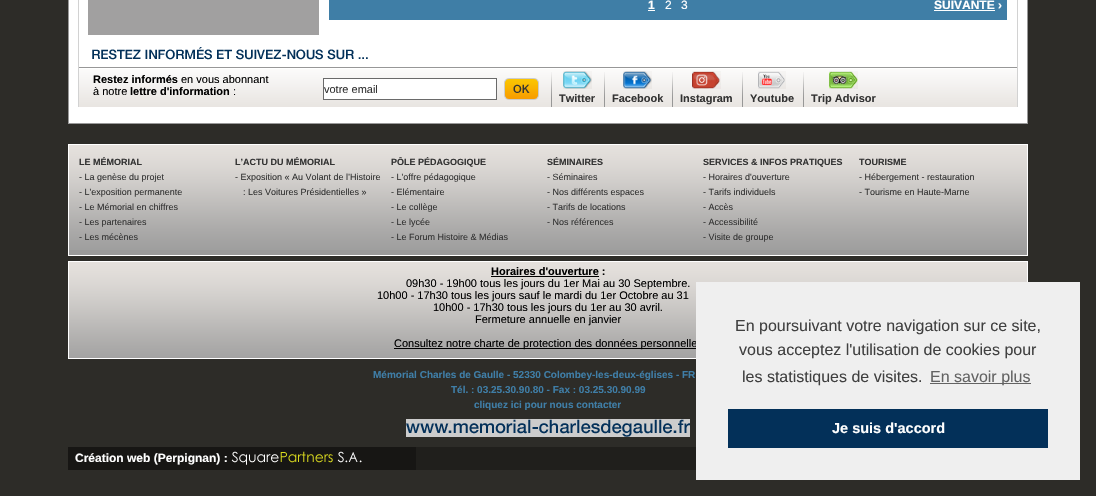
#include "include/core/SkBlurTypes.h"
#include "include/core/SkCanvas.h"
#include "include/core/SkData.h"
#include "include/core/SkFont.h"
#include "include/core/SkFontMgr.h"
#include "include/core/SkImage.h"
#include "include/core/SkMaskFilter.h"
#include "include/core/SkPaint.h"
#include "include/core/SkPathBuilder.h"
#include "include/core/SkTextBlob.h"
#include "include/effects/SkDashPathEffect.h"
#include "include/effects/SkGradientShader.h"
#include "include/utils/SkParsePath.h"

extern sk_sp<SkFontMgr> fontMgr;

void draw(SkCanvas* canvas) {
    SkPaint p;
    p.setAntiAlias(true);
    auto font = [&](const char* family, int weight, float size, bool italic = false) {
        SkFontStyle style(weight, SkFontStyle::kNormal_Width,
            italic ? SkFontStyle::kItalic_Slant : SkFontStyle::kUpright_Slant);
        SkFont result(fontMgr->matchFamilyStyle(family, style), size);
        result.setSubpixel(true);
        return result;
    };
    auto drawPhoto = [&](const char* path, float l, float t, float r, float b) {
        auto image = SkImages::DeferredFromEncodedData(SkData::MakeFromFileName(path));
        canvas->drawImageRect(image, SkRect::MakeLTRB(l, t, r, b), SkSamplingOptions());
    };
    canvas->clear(0xFF2D2C28);
    p.setColor(0xFFFFFFFF);
    canvas->drawRect(SkRect::MakeLTRB(68.5f, -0.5f, 1027.5f, 123.5f), p);
    p.setStyle(SkPaint::kStroke_Style);
    p.setStrokeWidth(1);
    p.setColor(0xFF999999);
    canvas->drawRect(SkRect::MakeLTRB(68.5f, -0.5f, 1027.5f, 123.5f), p);
    p.setStyle(SkPaint::kFill_Style);
    {
        const struct { float l, t, r, b; SkColor color; } items[] = {
            {1017, 0, 1018, 107, 0xFFD2D2D2},
            {78, 0, 79, 107, 0xFFD2D2D2},
            {88, 0, 319, 35, 0xFFA1A0A0},
            {329, 0, 1007, 20, 0xFF3F7EA6},
        };
        for (auto [l, t, r, b, color] : items) {
            p.setColor(color);
            canvas->drawRect(SkRect::MakeLTRB(l, t, r, b), p);
        }
    }
    auto font1 = font("Liberation Sans", 700, 12);
    p.setColor(0xFFFFFFFF);
    canvas->drawString("1", 648, 9, font1, p);
    canvas->drawRect(SkRect::MakeLTRB(648, 10, 655, 11), p);
    auto font2 = font("Liberation Sans", 400, 12);
    canvas->drawString("2", 665, 9, font2, p);
    canvas->drawString("3", 681, 9, font2, p);
    canvas->drawString("SUIVANTE ›", 934, 9, font1, p);
    canvas->drawRect(SkRect::MakeLTRB(934, 10, 995, 11), p);
    drawPhoto("media/1.png", 92, 47, 368, 60);
    drawPhoto("media/2.png", 79, 69, 1017, 107);
    p.setColor(0xFF979797);
    canvas->drawRect(SkRect::MakeLTRB(79, 67, 1017, 68), p);
    auto font3 = font("Liberation Sans", 700, 11);
    p.setColor(0xFF000000);
    canvas->drawString("Restez informés", 93, 83, font3, p);
    auto font4 = font("Liberation Sans", 400, 11);
    canvas->drawString("en vous abonnant", 181, 83, font4, p);
    canvas->drawString("à notre", 93, 95, font4, p);
    canvas->drawString("lettre d'information", 130, 95, font3, p);
    canvas->drawString(":", 233, 95, font4, p);
    p.setColor(0xFFFFFFFF);
    canvas->drawRect(SkRect::MakeLTRB(323.5f, 78.5f, 496.5f, 99.5f), p);
    p.setStyle(SkPaint::kStroke_Style);
    p.setColor(0xFF6A6A6A);
    canvas->drawRect(SkRect::MakeLTRB(323.5f, 78.5f, 496.5f, 99.5f), p);
    p.setStyle(SkPaint::kFill_Style);
    p.setColor(0xFF333333);
    canvas->drawString("votre email", 324, 93, font4, p);
    drawPhoto("media/3.png", 504, 78, 539, 100);
    drawPhoto("media/4.png", 551, 72, 552, 107);
    drawPhoto("media/5.png", 563, 71, 592, 89);
    canvas->drawString("Twitter", 559, 102, font3, p);
    drawPhoto("media/4.png", 604, 72, 605, 107);
    drawPhoto("media/6.png", 623, 71, 652, 89);
    canvas->drawString("Facebook", 612, 102, font3, p);
    drawPhoto("media/4.png", 672, 72, 673, 107);
    drawPhoto("media/7.png", 692, 71, 721, 89);
    canvas->drawString("Instagram", 680, 102, font3, p);
    drawPhoto("media/4.png", 742, 72, 743, 107);
    drawPhoto("media/8.png", 758, 71, 786, 89);
    canvas->drawString("Youtube", 750, 102, font3, p);
    drawPhoto("media/4.png", 803, 72, 804, 107);
    drawPhoto("media/9.png", 829, 71, 858, 89);
    canvas->drawString("Trip Advisor", 811, 102, font3, p);
    p.setColor(0xFF9A9A9A);
    canvas->drawRect(SkRect::MakeLTRB(69, 250, 1027, 255), p);
    drawPhoto("media/10.png", 69, 145, 1027, 250);
    p.setStyle(SkPaint::kStroke_Style);
    p.setColor(0xFFFFFFFF);
    canvas->drawRect(SkRect::MakeLTRB(68.5f, 144.5f, 1027.5f, 255.5f), p);
    auto font5 = font("Liberation Sans", 700, 9);
    p.setStyle(SkPaint::kFill_Style);
    p.setColor(0xFF333333);
    canvas->drawString("LE MÉMORIAL", 79, 165, font5, p);
    auto font6 = font("Liberation Sans", 400, 9);
    {
        const struct { const char* s; float x, y; } items[] = {
            {"- La genèse du projet", 79, 180},
            {"- L'exposition permanente", 79, 195},
            {"- Le Mémorial en chiffres", 79, 210},
            {"- Les partenaires", 79, 225},
            {"- Les mécènes", 79, 240},
        };
        for (auto [s, x, y] : items) {
            canvas->drawString(s, x, y, font6, p);
        }
    }
    canvas->drawString("L’ACTU DU MÉMORIAL", 235, 165, font5, p);
    canvas->drawString("- Exposition « Au Volant de l’Histoire", 235, 180, font6, p);
    canvas->drawString(": Les Voitures Présidentielles »", 243, 195, font6, p);
    canvas->drawString("PÔLE PÉDAGOGIQUE", 391, 165, font5, p);
    {
        const struct { const char* s; float x, y; } items[] = {
            {"- L'offre pédagogique", 391, 180},
            {"- Elémentaire", 391, 195},
            {"- Le collège", 391, 210},
            {"- Le lycée", 391, 225},
            {"- Le Forum Histoire & Médias", 391, 240},
        };
        for (auto [s, x, y] : items) {
            canvas->drawString(s, x, y, font6, p);
        }
    }
    canvas->drawString("SÉMINAIRES", 547, 165, font5, p);
    {
        const struct { const char* s; float x, y; } items[] = {
            {"- Séminaires", 547, 180},
            {"- Nos différents espaces", 547, 195},
            {"- Tarifs de locations", 547, 210},
            {"- Nos références", 547, 225},
        };
        for (auto [s, x, y] : items) {
            canvas->drawString(s, x, y, font6, p);
        }
    }
    canvas->drawString("SERVICES & INFOS PRATIQUES", 703, 165, font5, p);
    {
        const struct { const char* s; float x, y; } items[] = {
            {"- Horaires d'ouverture", 703, 180},
            {"- Tarifs individuels", 703, 195},
            {"- Accès", 703, 210},
            {"- Accessibilité", 703, 225},
            {"- Visite de groupe", 703, 240},
        };
        for (auto [s, x, y] : items) {
            canvas->drawString(s, x, y, font6, p);
        }
    }
    canvas->drawString("TOURISME", 859, 165, font5, p);
    canvas->drawString("- Hébergement - restauration", 859, 180, font6, p);
    canvas->drawString("- Tourisme en Haute-Marne", 859, 195, font6, p);
    drawPhoto("media/11.png", 69, 262, 1027, 358);
    p.setStyle(SkPaint::kStroke_Style);
    p.setColor(0xFFFFFFFF);
    canvas->drawRect(SkRect::MakeLTRB(68.5f, 261.5f, 1027.5f, 358.5f), p);
    p.setStyle(SkPaint::kFill_Style);
    p.setColor(0xFF000000);
    canvas->drawString("Horaires d'ouverture :", 491, 275, font3, p);
    canvas->drawRect(SkRect::MakeLTRB(491, 276, 599, 277), p);
    {
        const struct { const char* s; float x, y; } items[] = {
            {"09h30 - 19h00 tous les jours du 1er Mai au 30 Septembre.", 406, 287},
            {"10h00 - 17h30 tous les jours sauf le mardi du 1er Octobre au 31", 377, 299},
            {"10h00 - 17h30 tous les jours du 1er au 30 avril.", 433, 311},
            {"Fermeture annuelle en janvier", 475, 323},
        };
        for (auto [s, x, y] : items) {
            canvas->drawString(s, x, y, font4, p);
        }
    }
    canvas->drawRect(SkRect::MakeLTRB(394, 348, 702, 349), p);
    canvas->drawString("Consultez notre charte de protection des données personnelle", 394, 347, font4, p);
    drawPhoto("media/12.png", 406, 419, 690, 437);
    auto font7 = font("Liberation Sans", 700, 10);
    p.setColor(0xFF3F7EA7);
    {
        const struct { const char* s; float x, y; } items[] = {
            {"Mémorial Charles de Gaulle - 52330 Colombey-les-deux-églises - FR", 373, 378},
            {"Tél. : 03.25.30.90.80 - Fax : 03.25.30.90.99", 451, 393},
            {"cliquez ici pour nous contacter", 474, 408},
        };
        for (auto [s, x, y] : items) {
            canvas->drawString(s, x, y, font7, p);
        }
    }
    p.setColor(0xFFEFEFEF);
    canvas->drawRect(SkRect::MakeLTRB(696, 282, 1080, 480), p);
    auto font8 = font("Liberation Sans", 400, 16);
    p.setColor(0xFF404040);
    {
        const struct { const char* s; float x, y; } items[] = {
            {"En poursuivant votre navigation sur ce site,", 735, 331},
            {"vous acceptez l'utilisation de cookies pour", 739, 355},
            {"les statistiques de visites.", 742, 382},
        };
        for (auto [s, x, y] : items) {
            canvas->drawString(s, x, y, font8, p);
        }
    }
    p.setColor(0xFF636363);
    canvas->drawRect(SkRect::MakeLTRB(930, 383, 1031, 384), p);
    canvas->drawString("En savoir plus", 930, 382, font8, p);
    p.setColor(0xFF033059);
    canvas->drawRect(SkRect::MakeLTRB(728, 409, 1048, 448), p);
    auto font9 = font("Liberation Sans", 700, 14.5f);
    p.setColor(0xFFFFFFFF);
    canvas->drawString("Je suis d'accord", 832, 433, font9, p);
    p.setColor(0xFF171614);
    canvas->drawRect(SkRect::MakeLTRB(68, 447, 416, 470), p);
    p.setColor(0xFF201F1C);
    canvas->drawRect(SkRect::MakeLTRB(416, 447, 696, 470), p);
    p.setColor(0xFFFFFFFF);
    canvas->drawString("Création web (Perpignan) :", 75, 462, font1, p);
    drawPhoto("media/13.png", 231, 451, 362, 465);
}
